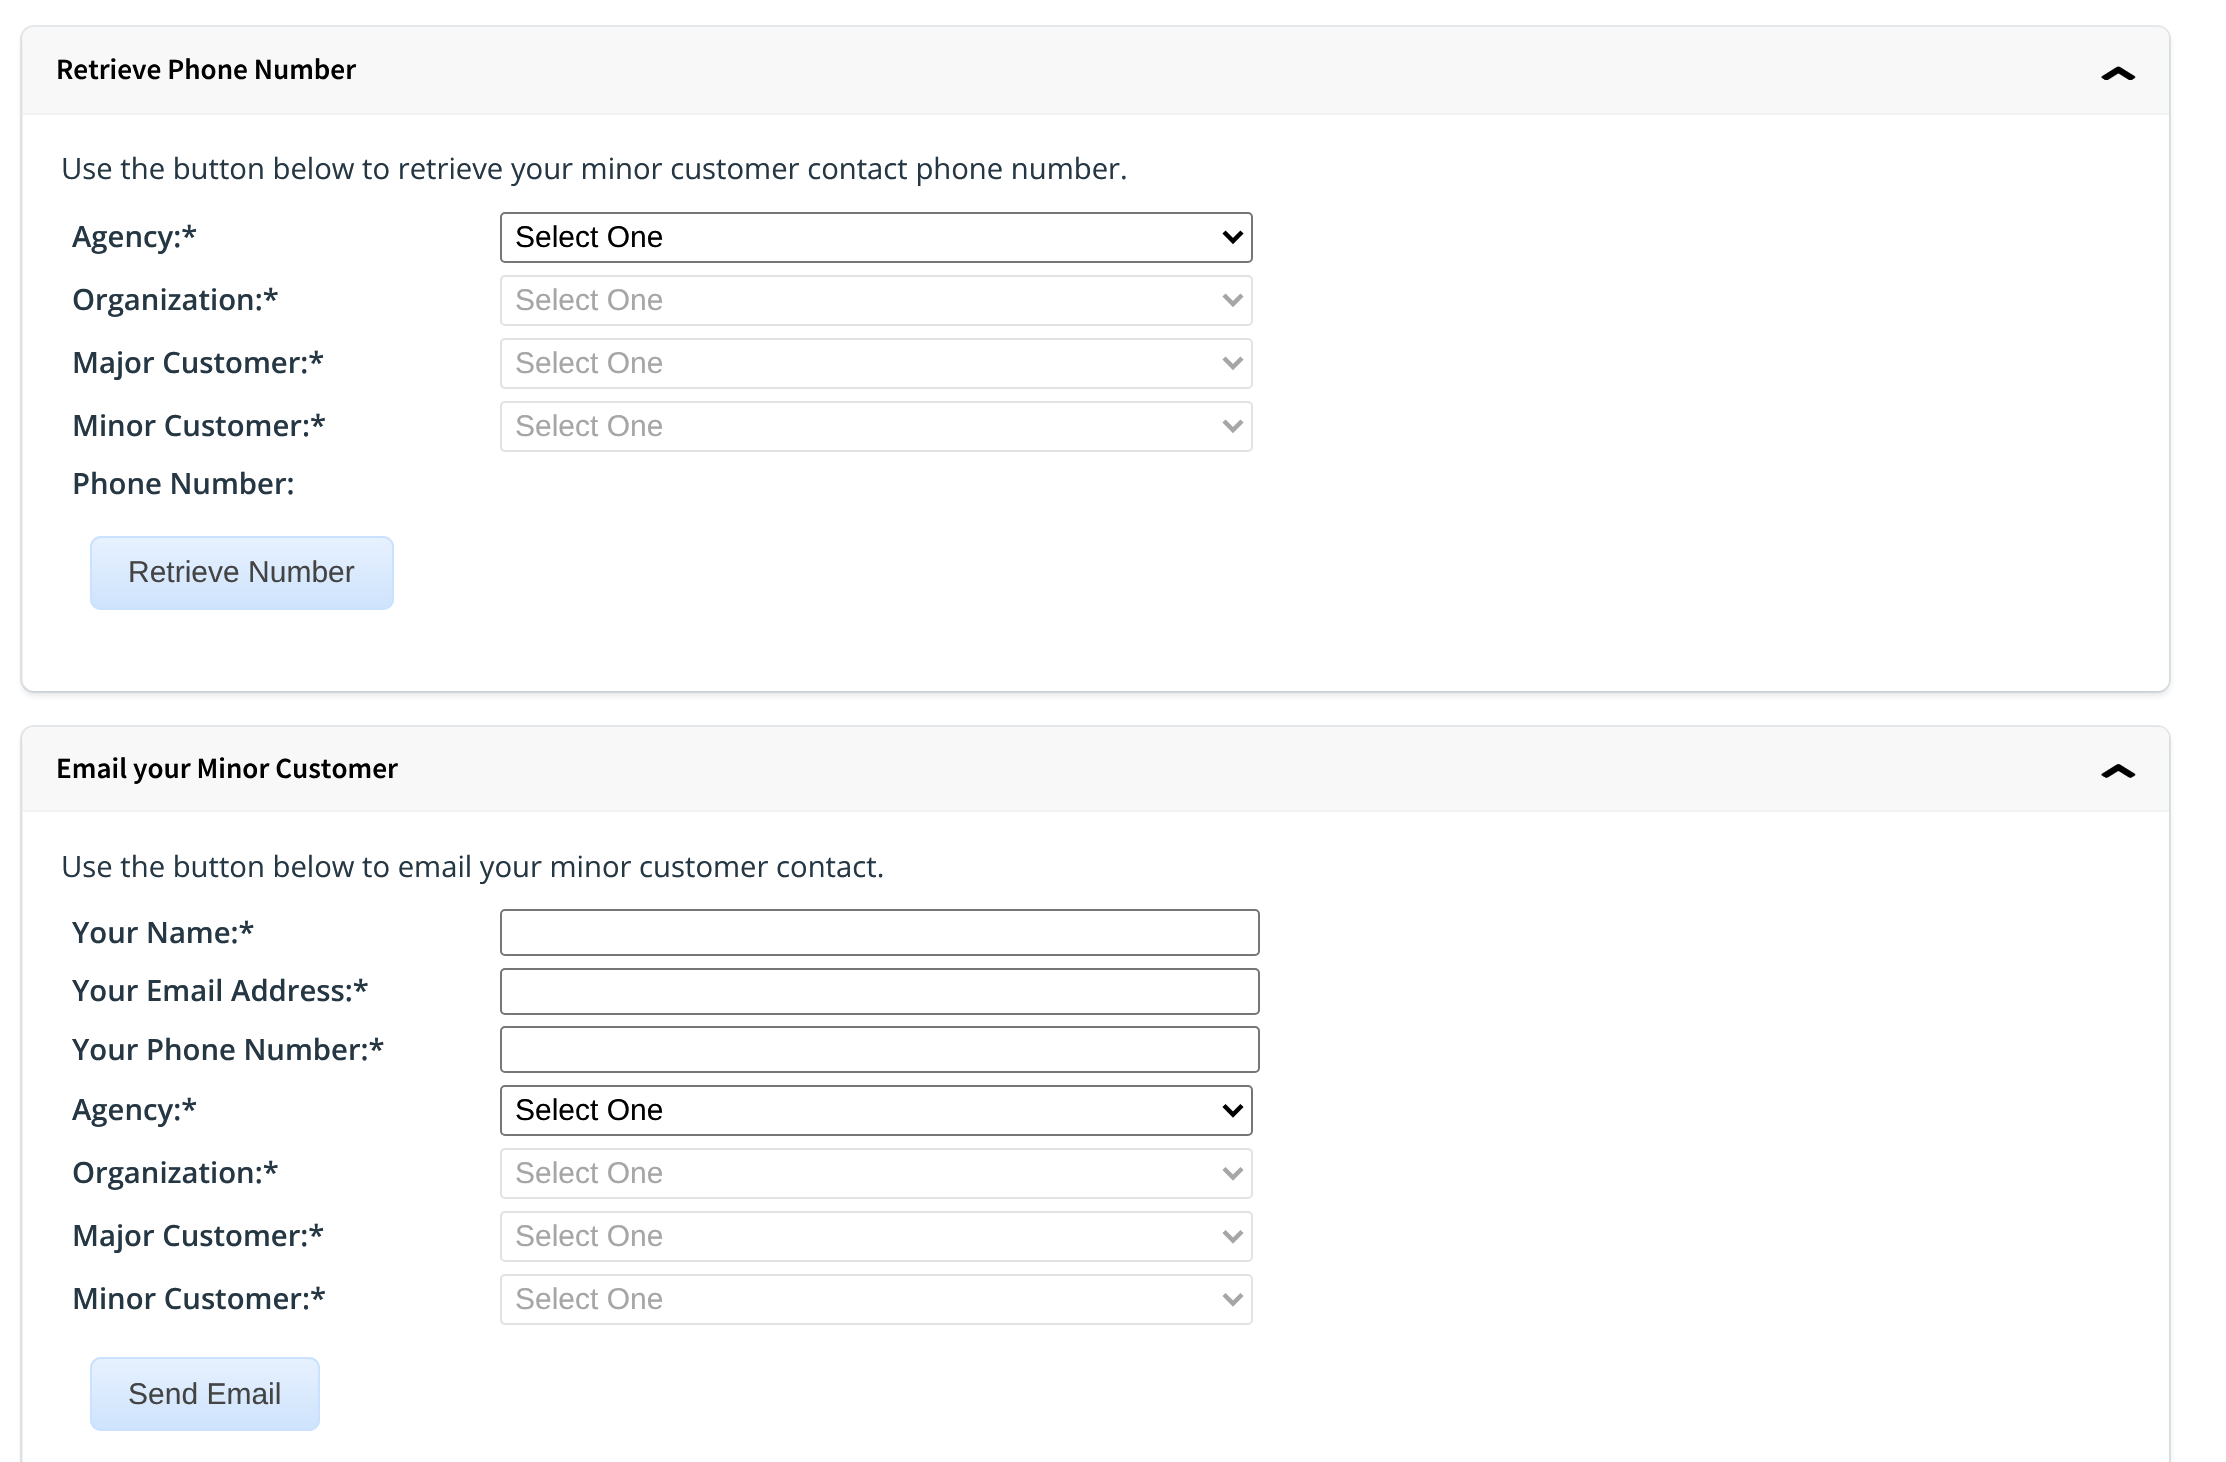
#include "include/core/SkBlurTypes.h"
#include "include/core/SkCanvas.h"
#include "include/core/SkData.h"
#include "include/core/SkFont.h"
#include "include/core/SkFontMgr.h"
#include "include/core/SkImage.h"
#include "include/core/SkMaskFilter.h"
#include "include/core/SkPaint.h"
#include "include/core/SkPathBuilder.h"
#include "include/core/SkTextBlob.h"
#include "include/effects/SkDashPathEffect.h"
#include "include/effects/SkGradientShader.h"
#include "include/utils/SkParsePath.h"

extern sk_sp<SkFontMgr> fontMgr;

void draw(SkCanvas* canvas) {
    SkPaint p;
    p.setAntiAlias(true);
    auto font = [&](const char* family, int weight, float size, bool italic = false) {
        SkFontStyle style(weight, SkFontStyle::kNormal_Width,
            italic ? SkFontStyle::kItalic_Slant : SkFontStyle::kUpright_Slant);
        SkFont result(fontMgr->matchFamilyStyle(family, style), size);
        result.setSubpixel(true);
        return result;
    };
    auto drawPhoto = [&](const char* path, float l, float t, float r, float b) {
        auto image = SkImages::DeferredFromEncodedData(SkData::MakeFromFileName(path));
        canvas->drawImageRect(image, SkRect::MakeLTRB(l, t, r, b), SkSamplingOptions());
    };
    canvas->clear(0xFFFFFFFF);
    p.setColor(0x240E2939);
    p.setMaskFilter(SkMaskFilter::MakeBlur(kNormal_SkBlurStyle, 3.5f));
    canvas->drawRoundRect(SkRect::MakeLTRB(23, 32, 2169, 695), 11, 11, p);
    p.setMaskFilter(nullptr);
    p.setStyle(SkPaint::kStroke_Style);
    p.setStrokeWidth(2);
    p.setColor(0x1A0E2939);
    canvas->drawRoundRect(SkRect::MakeLTRB(21, 26, 2170, 692), 13, 13, p);
    p.setStyle(SkPaint::kFill_Style);
    p.setColor(0xFFF8F8F8);
    canvas->drawPath(SkPathBuilder().moveTo(34, 27).lineTo(2158, 27).cubicTo(2164, 27, 2169, 32, 2169, 38).lineTo(2169, 115).lineTo(23, 115).lineTo(23, 38).cubicTo(23, 32, 28, 27, 34, 27).close().detach(), p);
    p.setColor(0xFFF1F1F1);
    canvas->drawRect(SkRect::MakeLTRB(23, 113, 2169, 115), p);
    auto font1 = font("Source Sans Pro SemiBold", 600, 29.25f);
    p.setColor(0xFF000000);
    canvas->drawString("Retrieve Phone Number", 56, 79, font1, p);
    drawPhoto("media/1.png", 2101, 66, 2136, 80);
    p.setColor(0xFFFFFFFF);
    canvas->drawPath(SkPathBuilder().moveTo(23, 115).lineTo(2169, 115).lineTo(2169, 680).cubicTo(2169, 686, 2164, 691, 2158, 691).lineTo(34, 691).cubicTo(28, 691, 23, 686, 23, 680).close().detach(), p);
    auto font2 = font("Open Sans", 400, 29.25f);
    p.setColor(0xFF263744);
    canvas->drawString("Use the button below to retrieve your minor customer contact phone number.", 61, 179, font2, p);
    auto font3 = font("Open Sans", 600, 29.25f);
    canvas->drawString("Agency:*", 72, 247, font3, p);
    p.setStyle(SkPaint::kStroke_Style);
    p.setColor(0xFF767676);
    canvas->drawRoundRect(SkRect::MakeLTRB(501, 213, 1252, 262), 4, 4, p);
    p.setStrokeWidth(4.5f);
    p.setColor(0xFF000000);
    canvas->drawPath(SkPathBuilder().moveTo(1224, 232).lineTo(1233, 241).lineTo(1242, 232).detach(), p);
    auto font4 = font("Liberation Sans", 400, 30);
    p.setStyle(SkPaint::kFill_Style);
    canvas->drawString("Select One", 515, 247, font4, p);
    p.setColor(0xFF263744);
    canvas->drawString("Organization:*", 72, 310, font3, p);
    p.setStyle(SkPaint::kStroke_Style);
    p.setStrokeWidth(2);
    p.setColor(0xFFE2E2E2);
    canvas->drawRoundRect(SkRect::MakeLTRB(501, 276, 1252, 325), 4, 4, p);
    p.setStrokeWidth(4.5f);
    p.setColor(0xFFA6A6A6);
    canvas->drawPath(SkPathBuilder().moveTo(1224, 295).lineTo(1233, 304).lineTo(1242, 295).detach(), p);
    p.setStyle(SkPaint::kFill_Style);
    canvas->drawString("Select One", 515, 310, font4, p);
    p.setColor(0xFF263744);
    canvas->drawString("Major Customer:*", 72, 373, font3, p);
    p.setStyle(SkPaint::kStroke_Style);
    p.setStrokeWidth(2);
    p.setColor(0xFFE2E2E2);
    canvas->drawRoundRect(SkRect::MakeLTRB(501, 339, 1252, 388), 4, 4, p);
    p.setStrokeWidth(4.5f);
    p.setColor(0xFFA6A6A6);
    canvas->drawPath(SkPathBuilder().moveTo(1224, 358).lineTo(1233, 367).lineTo(1242, 358).detach(), p);
    p.setStyle(SkPaint::kFill_Style);
    canvas->drawString("Select One", 515, 373, font4, p);
    p.setColor(0xFF263744);
    canvas->drawString("Minor Customer:*", 72, 436, font3, p);
    p.setStyle(SkPaint::kStroke_Style);
    p.setStrokeWidth(2);
    p.setColor(0xFFE2E2E2);
    canvas->drawRoundRect(SkRect::MakeLTRB(501, 402, 1252, 451), 4, 4, p);
    p.setStrokeWidth(4.5f);
    p.setColor(0xFFA6A6A6);
    canvas->drawPath(SkPathBuilder().moveTo(1224, 421).lineTo(1233, 430).lineTo(1242, 421).detach(), p);
    p.setStyle(SkPaint::kFill_Style);
    canvas->drawString("Select One", 515, 436, font4, p);
    p.setColor(0xFF263744);
    canvas->drawString("Phone Number:", 72, 494, font3, p);
    canvas->save();
    canvas->clipPath(SkPathBuilder().moveTo(101, 536).lineTo(383, 536).cubicTo(389, 536, 394, 541, 394, 547).lineTo(394, 599).cubicTo(394, 605, 389, 610, 383, 610).lineTo(101, 610).cubicTo(95, 610, 90, 605, 90, 599).lineTo(90, 547).cubicTo(90, 541, 95, 536, 101, 536).close().detach(), true);
    {
        const SkColor colors[] = {0xFFE7F1FE, 0xFFCEE3FD};
        const float stops[] = {0, 1};
        const SkPoint ends[] = {{242, 538}, {242, 608}};
        p.setShader(SkGradientShader::MakeLinear(ends, colors, stops, 2, SkTileMode::kClamp));
        p.setAlpha(255);
    }
    canvas->drawRect(SkRect::MakeLTRB(90, 538, 394, 608), p);
    canvas->restore();
    p.setStyle(SkPaint::kStroke_Style);
    p.setStrokeWidth(2);
    p.setShader(nullptr);
    p.setColor(0xFFCAE2FF);
    canvas->drawRoundRect(SkRect::MakeLTRB(91, 537, 393, 609), 10, 10, p);
    p.setStyle(SkPaint::kFill_Style);
    p.setColor(0xFF444444);
    canvas->drawString("Retrieve Number", 128, 582, font4, p);
    p.setColor(0x240E2939);
    p.setMaskFilter(SkMaskFilter::MakeBlur(kNormal_SkBlurStyle, 3.5f));
    canvas->drawRoundRect(SkRect::MakeLTRB(23, 731, 2169, 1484), 11, 11, p);
    p.setMaskFilter(nullptr);
    p.setStyle(SkPaint::kStroke_Style);
    p.setColor(0x1A0E2939);
    canvas->drawRoundRect(SkRect::MakeLTRB(21, 726, 2170, 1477), 13, 13, p);
    p.setStyle(SkPaint::kFill_Style);
    p.setColor(0xFFFFFFFF);
    canvas->drawRoundRect(SkRect::MakeLTRB(23, 727, 2169, 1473), 11, 11, p);
    p.setColor(0xFFF8F8F8);
    canvas->drawPath(SkPathBuilder().moveTo(34, 727).lineTo(2158, 727).cubicTo(2164, 727, 2169, 732, 2169, 738).lineTo(2169, 812).lineTo(23, 812).lineTo(23, 738).cubicTo(23, 732, 28, 727, 34, 727).close().detach(), p);
    p.setColor(0xFFF1F1F1);
    canvas->drawRect(SkRect::MakeLTRB(23, 810, 2169, 812), p);
    p.setColor(0xFF000000);
    canvas->drawString("Email your Minor Customer", 56, 778, font1, p);
    drawPhoto("media/2.png", 2101, 764, 2136, 778);
    p.setColor(0xFF263744);
    canvas->drawString("Use the button below to email your minor customer contact.", 61, 877, font2, p);
    canvas->drawString("Your Name:*", 72, 943, font3, p);
    p.setStyle(SkPaint::kStroke_Style);
    p.setColor(0xFF767676);
    canvas->drawRoundRect(SkRect::MakeLTRB(501, 910, 1259, 955), 4, 4, p);
    p.setStyle(SkPaint::kFill_Style);
    p.setColor(0xFF263744);
    canvas->drawString("Your Email Address:*", 72, 1001, font3, p);
    p.setStyle(SkPaint::kStroke_Style);
    p.setColor(0xFF767676);
    canvas->drawRoundRect(SkRect::MakeLTRB(501, 969, 1259, 1014), 4, 4, p);
    p.setStyle(SkPaint::kFill_Style);
    p.setColor(0xFF263744);
    canvas->drawString("Your Phone Number:*", 72, 1060, font3, p);
    p.setStyle(SkPaint::kStroke_Style);
    p.setColor(0xFF767676);
    canvas->drawRoundRect(SkRect::MakeLTRB(501, 1027, 1259, 1072), 4, 4, p);
    p.setStyle(SkPaint::kFill_Style);
    p.setColor(0xFF263744);
    canvas->drawString("Agency:*", 72, 1120, font3, p);
    p.setStyle(SkPaint::kStroke_Style);
    p.setColor(0xFF767676);
    canvas->drawRoundRect(SkRect::MakeLTRB(501, 1086, 1252, 1135), 4, 4, p);
    p.setStrokeWidth(4.5f);
    p.setColor(0xFF000000);
    canvas->drawPath(SkPathBuilder().moveTo(1224, 1105.5f).lineTo(1233, 1114.5f).lineTo(1242, 1105.5f).detach(), p);
    p.setStyle(SkPaint::kFill_Style);
    canvas->drawString("Select One", 515, 1120, font4, p);
    p.setColor(0xFF263744);
    canvas->drawString("Organization:*", 72, 1183, font3, p);
    p.setStyle(SkPaint::kStroke_Style);
    p.setStrokeWidth(2);
    p.setColor(0xFFE2E2E2);
    canvas->drawRoundRect(SkRect::MakeLTRB(501, 1149, 1252, 1198), 4, 4, p);
    p.setStrokeWidth(4.5f);
    p.setColor(0xFFA6A6A6);
    canvas->drawPath(SkPathBuilder().moveTo(1224, 1168.5f).lineTo(1233, 1177.5f).lineTo(1242, 1168.5f).detach(), p);
    p.setStyle(SkPaint::kFill_Style);
    canvas->drawString("Select One", 515, 1183, font4, p);
    p.setColor(0xFF263744);
    canvas->drawString("Major Customer:*", 72, 1246, font3, p);
    p.setStyle(SkPaint::kStroke_Style);
    p.setStrokeWidth(2);
    p.setColor(0xFFE2E2E2);
    canvas->drawRoundRect(SkRect::MakeLTRB(501, 1212, 1252, 1261), 4, 4, p);
    p.setStrokeWidth(4.5f);
    p.setColor(0xFFA6A6A6);
    canvas->drawPath(SkPathBuilder().moveTo(1224, 1231.5f).lineTo(1233, 1240.5f).lineTo(1242, 1231.5f).detach(), p);
    p.setStyle(SkPaint::kFill_Style);
    canvas->drawString("Select One", 515, 1246, font4, p);
    p.setColor(0xFF263744);
    canvas->drawString("Minor Customer:*", 72, 1309, font3, p);
    p.setStyle(SkPaint::kStroke_Style);
    p.setStrokeWidth(2);
    p.setColor(0xFFE2E2E2);
    canvas->drawRoundRect(SkRect::MakeLTRB(501, 1275, 1252, 1324), 4, 4, p);
    p.setStrokeWidth(4.5f);
    p.setColor(0xFFA6A6A6);
    canvas->drawPath(SkPathBuilder().moveTo(1224, 1294.5f).lineTo(1233, 1303.5f).lineTo(1242, 1294.5f).detach(), p);
    p.setStyle(SkPaint::kFill_Style);
    canvas->drawString("Select One", 515, 1309, font4, p);
    canvas->save();
    canvas->clipPath(SkPathBuilder().moveTo(101, 1357).lineTo(309, 1357).cubicTo(315, 1357, 320, 1362, 320, 1368).lineTo(320, 1420).cubicTo(320, 1426, 315, 1431, 309, 1431).lineTo(101, 1431).cubicTo(95, 1431, 90, 1426, 90, 1420).lineTo(90, 1368).cubicTo(90, 1362, 95, 1357, 101, 1357).close().detach(), true);
    {
        const SkColor colors[] = {0xFFE7F1FE, 0xFFCEE3FD};
        const float stops[] = {0, 1};
        const SkPoint ends[] = {{205, 1359}, {205, 1429}};
        p.setShader(SkGradientShader::MakeLinear(ends, colors, stops, 2, SkTileMode::kClamp));
        p.setAlpha(255);
    }
    canvas->drawRect(SkRect::MakeLTRB(90, 1359, 320, 1429), p);
    canvas->restore();
    p.setStyle(SkPaint::kStroke_Style);
    p.setStrokeWidth(2);
    p.setShader(nullptr);
    p.setColor(0xFFCAE2FF);
    canvas->drawRoundRect(SkRect::MakeLTRB(91, 1358, 319, 1430), 10, 10, p);
    p.setStyle(SkPaint::kFill_Style);
    p.setColor(0xFF444444);
    canvas->drawString("Send Email", 128, 1404, font4, p);
}
